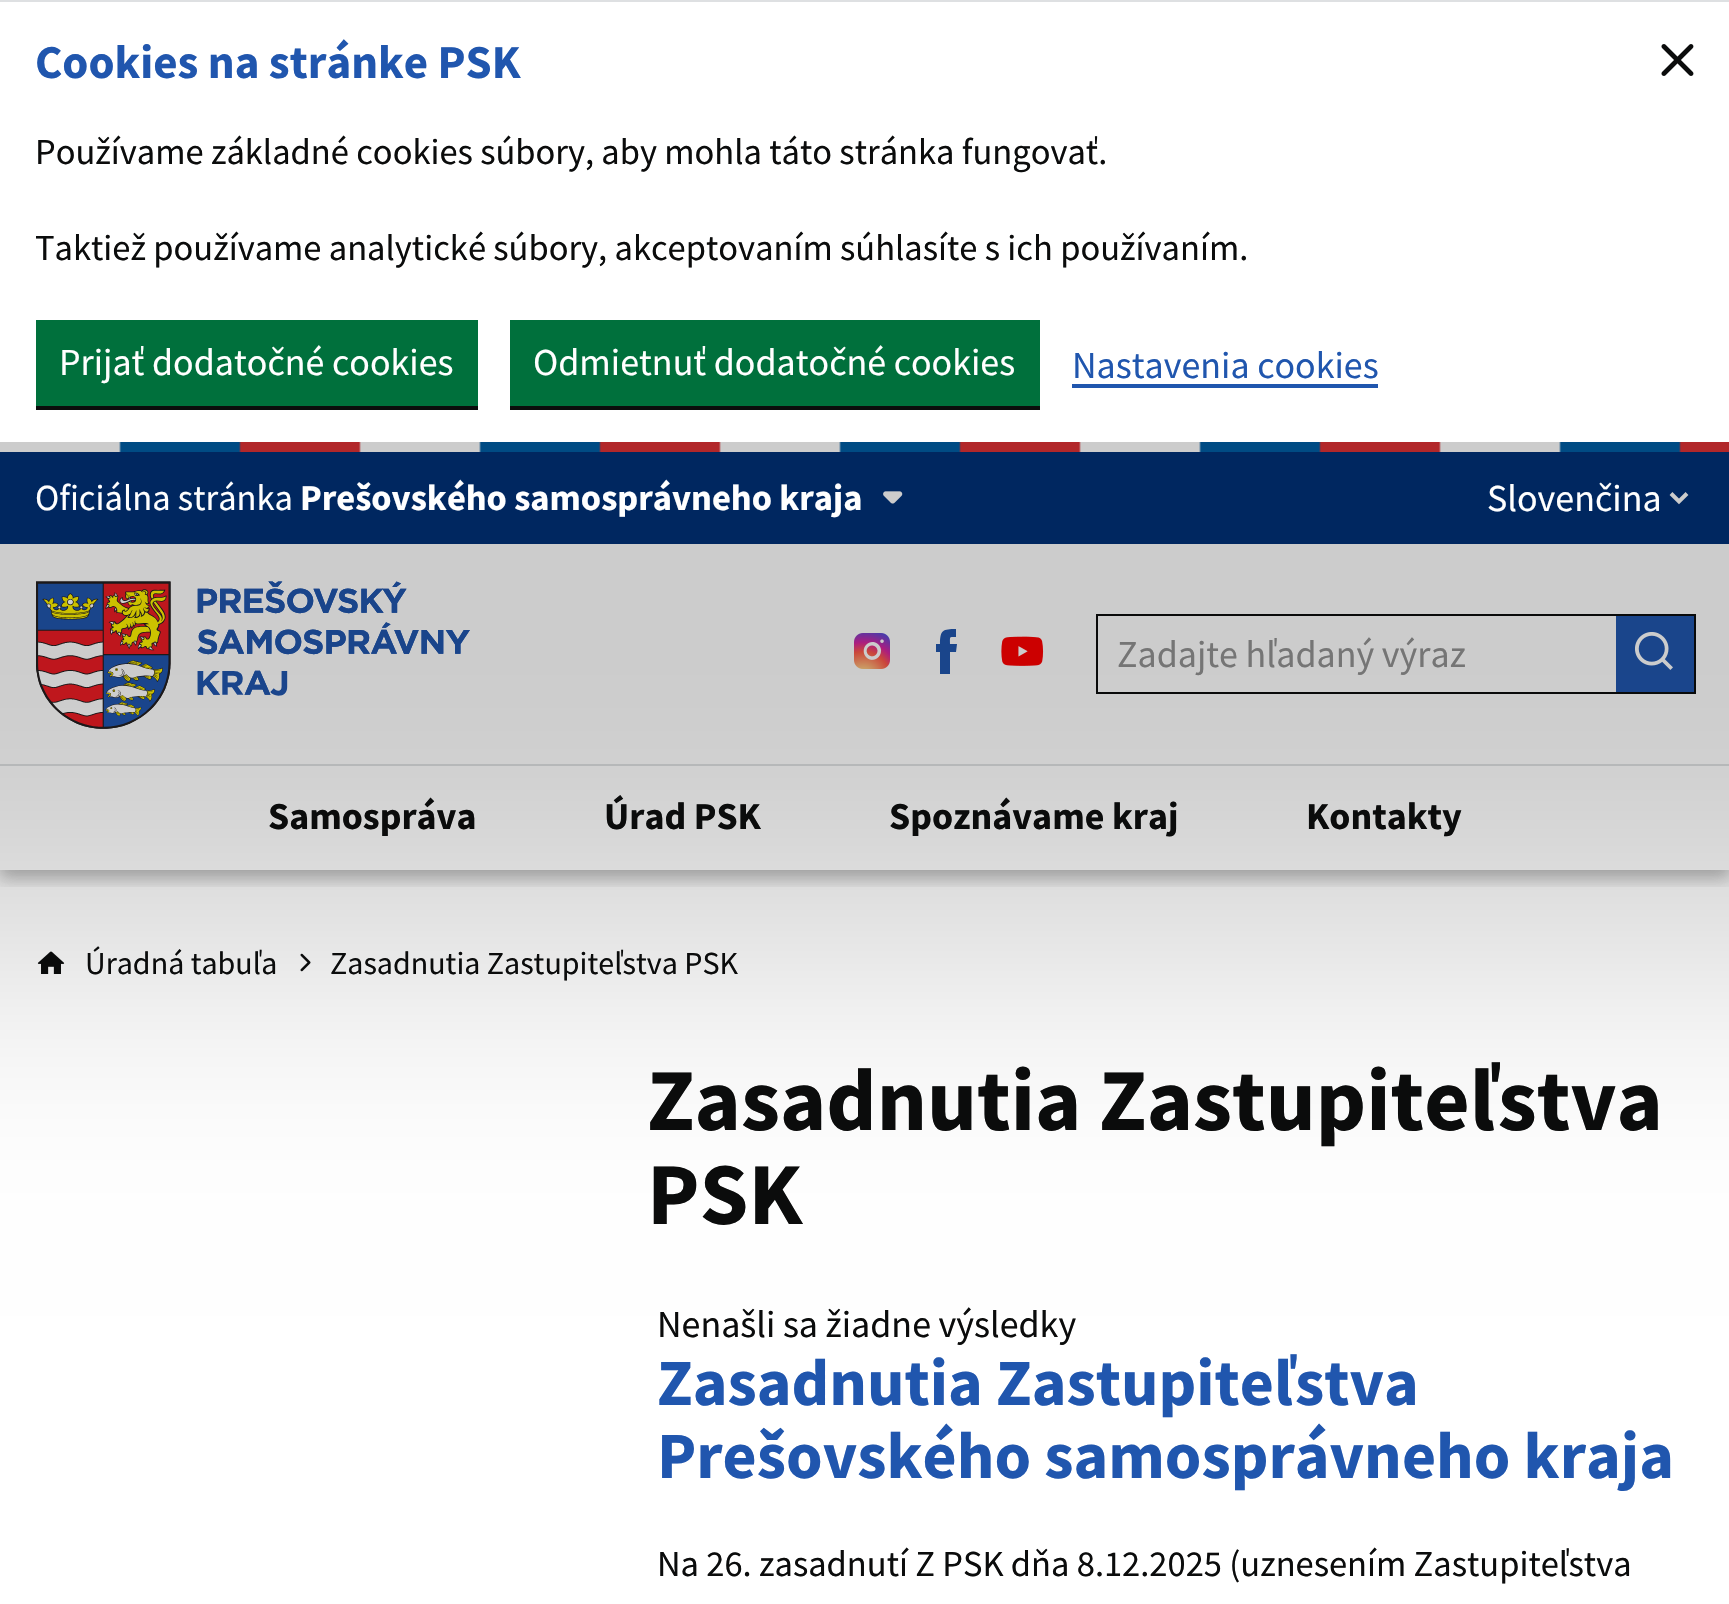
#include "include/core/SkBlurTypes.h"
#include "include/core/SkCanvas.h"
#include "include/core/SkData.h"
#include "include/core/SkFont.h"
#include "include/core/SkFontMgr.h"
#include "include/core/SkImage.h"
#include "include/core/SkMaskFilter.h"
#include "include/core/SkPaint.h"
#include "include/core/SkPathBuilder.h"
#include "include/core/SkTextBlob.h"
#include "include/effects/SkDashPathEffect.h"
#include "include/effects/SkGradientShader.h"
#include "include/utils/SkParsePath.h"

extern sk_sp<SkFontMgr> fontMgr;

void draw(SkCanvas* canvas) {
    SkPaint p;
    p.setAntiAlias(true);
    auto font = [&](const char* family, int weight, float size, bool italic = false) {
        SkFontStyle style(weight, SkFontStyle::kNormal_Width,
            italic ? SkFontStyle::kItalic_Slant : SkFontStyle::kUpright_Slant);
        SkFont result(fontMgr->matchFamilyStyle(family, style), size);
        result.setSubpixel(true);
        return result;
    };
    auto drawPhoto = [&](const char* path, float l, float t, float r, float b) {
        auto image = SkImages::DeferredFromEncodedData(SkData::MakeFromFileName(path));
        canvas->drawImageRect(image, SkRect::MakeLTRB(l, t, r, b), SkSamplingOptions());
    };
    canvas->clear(0xFFFFFFFF);
    canvas->save();
    canvas->clipRect(SkRect::MakeLTRB(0, 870, 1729, 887));
    p.setColor(0x26000000);
    p.setMaskFilter(SkMaskFilter::MakeBlur(kNormal_SkBlurStyle, 8));
    canvas->drawRect(SkRect::MakeLTRB(0, 772, 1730, 878), p);
    p.setMaskFilter(nullptr);
    p.setMaskFilter(SkMaskFilter::MakeBlur(kNormal_SkBlurStyle, 8));
    canvas->drawRect(SkRect::MakeLTRB(0, 772, 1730, 878), p);
    p.setMaskFilter(nullptr);
    canvas->restore();
    p.setColor(0xFFFFFFFF);
    canvas->drawRect(SkRect::MakeLTRB(0, 757, 1729, 764), p);
    drawPhoto("media/2.png", 119, 442, 1729, 452);
    p.setColor(0xFF003078);
    canvas->drawRect(SkRect::MakeLTRB(0, 452, 1729, 544), p);
    drawPhoto("media/3.png", 883, 491, 903, 504);
    p.setStyle(SkPaint::kStroke_Style);
    p.setStrokeWidth(4);
    p.setColor(0xFFFFFFFF);
    canvas->drawPath(SkPathBuilder().moveTo(1671, 493.5f).lineTo(1679, 501.5f).lineTo(1687, 493.5f).detach(), p);
    drawPhoto("media/4.png", 36, 581, 470, 729);
    drawPhoto("media/5.png", 854, 633, 890, 669);
    p.setStyle(SkPaint::kFill_Style);
    p.setColor(0xFF2056AE);
    canvas->drawPath(SkPathBuilder().moveTo(957, 644).lineTo(950, 644).cubicTo(950, 636, 949, 637, 956, 637).lineTo(956, 629).cubicTo(943, 629, 940, 630, 940, 644).lineTo(936, 644).lineTo(936, 652).lineTo(940, 652).lineTo(940, 674).lineTo(950, 674).lineTo(950, 652).lineTo(956, 652).close().detach(), p);
    drawPhoto("media/6.png", 1001, 636, 1044, 666);
    p.setStyle(SkPaint::kStroke_Style);
    p.setStrokeWidth(2);
    p.setColor(0xFF0B0C0C);
    canvas->drawRect(SkRect::MakeLTRB(1097, 615, 1695, 693), p);
    p.setStyle(SkPaint::kFill_Style);
    p.setColor(0xFF2056AE);
    canvas->drawRect(SkRect::MakeLTRB(1616, 616, 1694, 692), p);
    drawPhoto("media/7.png", 1635, 632, 1673, 670);
    p.setColor(0xFFDEE0E2);
    canvas->drawRect(SkRect::MakeLTRB(0, 764, 1729, 766), p);
    drawPhoto("media/8.png", 37, 951, 65, 974);
    drawPhoto("media/9.png", 300, 953, 311, 972);
    p.setColor(0x33000000);
    p.setMaskFilter(SkMaskFilter::MakeBlur(kNormal_SkBlurStyle, 250));
    canvas->drawRect(SkRect::MakeLTRB(-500, -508, 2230, 934), p);
    p.setMaskFilter(nullptr);
    p.setColor(0xFFFFFFFF);
    canvas->drawRect(SkRect::MakeLTRB(0, 2, 1729, 442), p);
    p.setColor(0xFFDEE0E2);
    canvas->drawRect(SkRect::MakeLTRB(0, 0, 1729, 2), p);
    auto font1 = font("Source Sans Pro", 700, 47);
    p.setColor(0xFF2056AE);
    canvas->drawString("Cookies na stránke PSK", 35, 78, font1, p);
    drawPhoto("media/1.png", 1661, 44, 1694, 76);
    auto font2 = font("Source Sans Pro", 400, 36.5f);
    p.setColor(0xFF0B0C0C);
    canvas->drawString("Používame základné cookies súbory, aby mohla táto stránka fungovať.", 35, 164, font2, p);
    canvas->drawString("Taktiež používame analytické súbory, akceptovaním súhlasíte s ich používaním.", 35, 260, font2, p);
    canvas->drawRect(SkRect::MakeLTRB(36, 406, 478, 410), p);
    p.setColor(0xFF00703C);
    canvas->drawRect(SkRect::MakeLTRB(36, 320, 478, 406), p);
    auto font3 = font("Source Sans Pro", 400, 38);
    p.setColor(0xFFFFFFFF);
    canvas->drawString("Prijať dodatočné cookies", 59, 375, font3, p);
    p.setColor(0xFF0B0C0C);
    canvas->drawRect(SkRect::MakeLTRB(510, 406, 1040, 410), p);
    p.setColor(0xFF00703C);
    canvas->drawRect(SkRect::MakeLTRB(510, 320, 1040, 406), p);
    p.setColor(0xFFFFFFFF);
    canvas->drawString("Odmietnuť dodatočné cookies", 533, 375, font3, p);
    p.setColor(0xFF2056AE);
    canvas->drawString("Nastavenia cookies", 1072, 378, font3, p);
    canvas->drawRect(SkRect::MakeLTRB(1072, 384, 1378, 388), p);
    p.setColor(0xFFFFFFFF);
    canvas->drawString("Oficiálna stránka", 35, 510, font2, p);
    auto font4 = font("Source Sans Pro", 700, 36.5f);
    canvas->drawString("Prešovského samosprávneho kraja", 300, 510, font4, p);
    canvas->drawString("Slovenčina", 1487, 511, font3, p);
    p.setColor(0xFF757575);
    canvas->drawString("Zadajte hľadaný výraz", 1117, 667, font3, p);
    auto font5 = font("Source Sans Pro", 700, 38);
    p.setColor(0xFF0B0C0C);
    {
        const struct { const char* s; float x, y; } items[] = {
            {"Samospráva", 268, 829},
            {"Úrad PSK", 604, 829},
            {"Spoznávame kraj", 889, 829},
            {"Kontakty", 1306, 829},
        };
        for (auto [s, x, y] : items) {
            canvas->drawString(s, x, y, font5, p);
        }
    }
    auto font6 = font("Source Sans Pro", 400, 32);
    canvas->drawString("Úradná tabuľa", 85, 974, font6, p);
    canvas->drawString("Zasadnutia Zastupiteľstva PSK", 330, 974, font6, p);
    auto font7 = font("Source Sans Pro", 700, 88);
    canvas->drawString("Zasadnutia Zastupiteľstva", 647, 1130, font7, p);
    canvas->drawString("PSK", 647, 1224, font7, p);
    canvas->drawString("Nenašli sa žiadne výsledky", 657, 1337, font3, p);
    auto font8 = font("Source Sans Pro", 700, 66);
    p.setColor(0xFF2056AE);
    canvas->drawString("Zasadnutia Zastupiteľstva", 657, 1405, font8, p);
    canvas->drawString("Prešovského samosprávneho kraja", 657, 1478, font8, p);
    p.setColor(0xFF0B0C0C);
    canvas->drawString("Na 26. zasadnutí Z PSK dňa 8.12.2025 (uznesením Zastupiteľstva", 657, 1576, font2, p);
}
